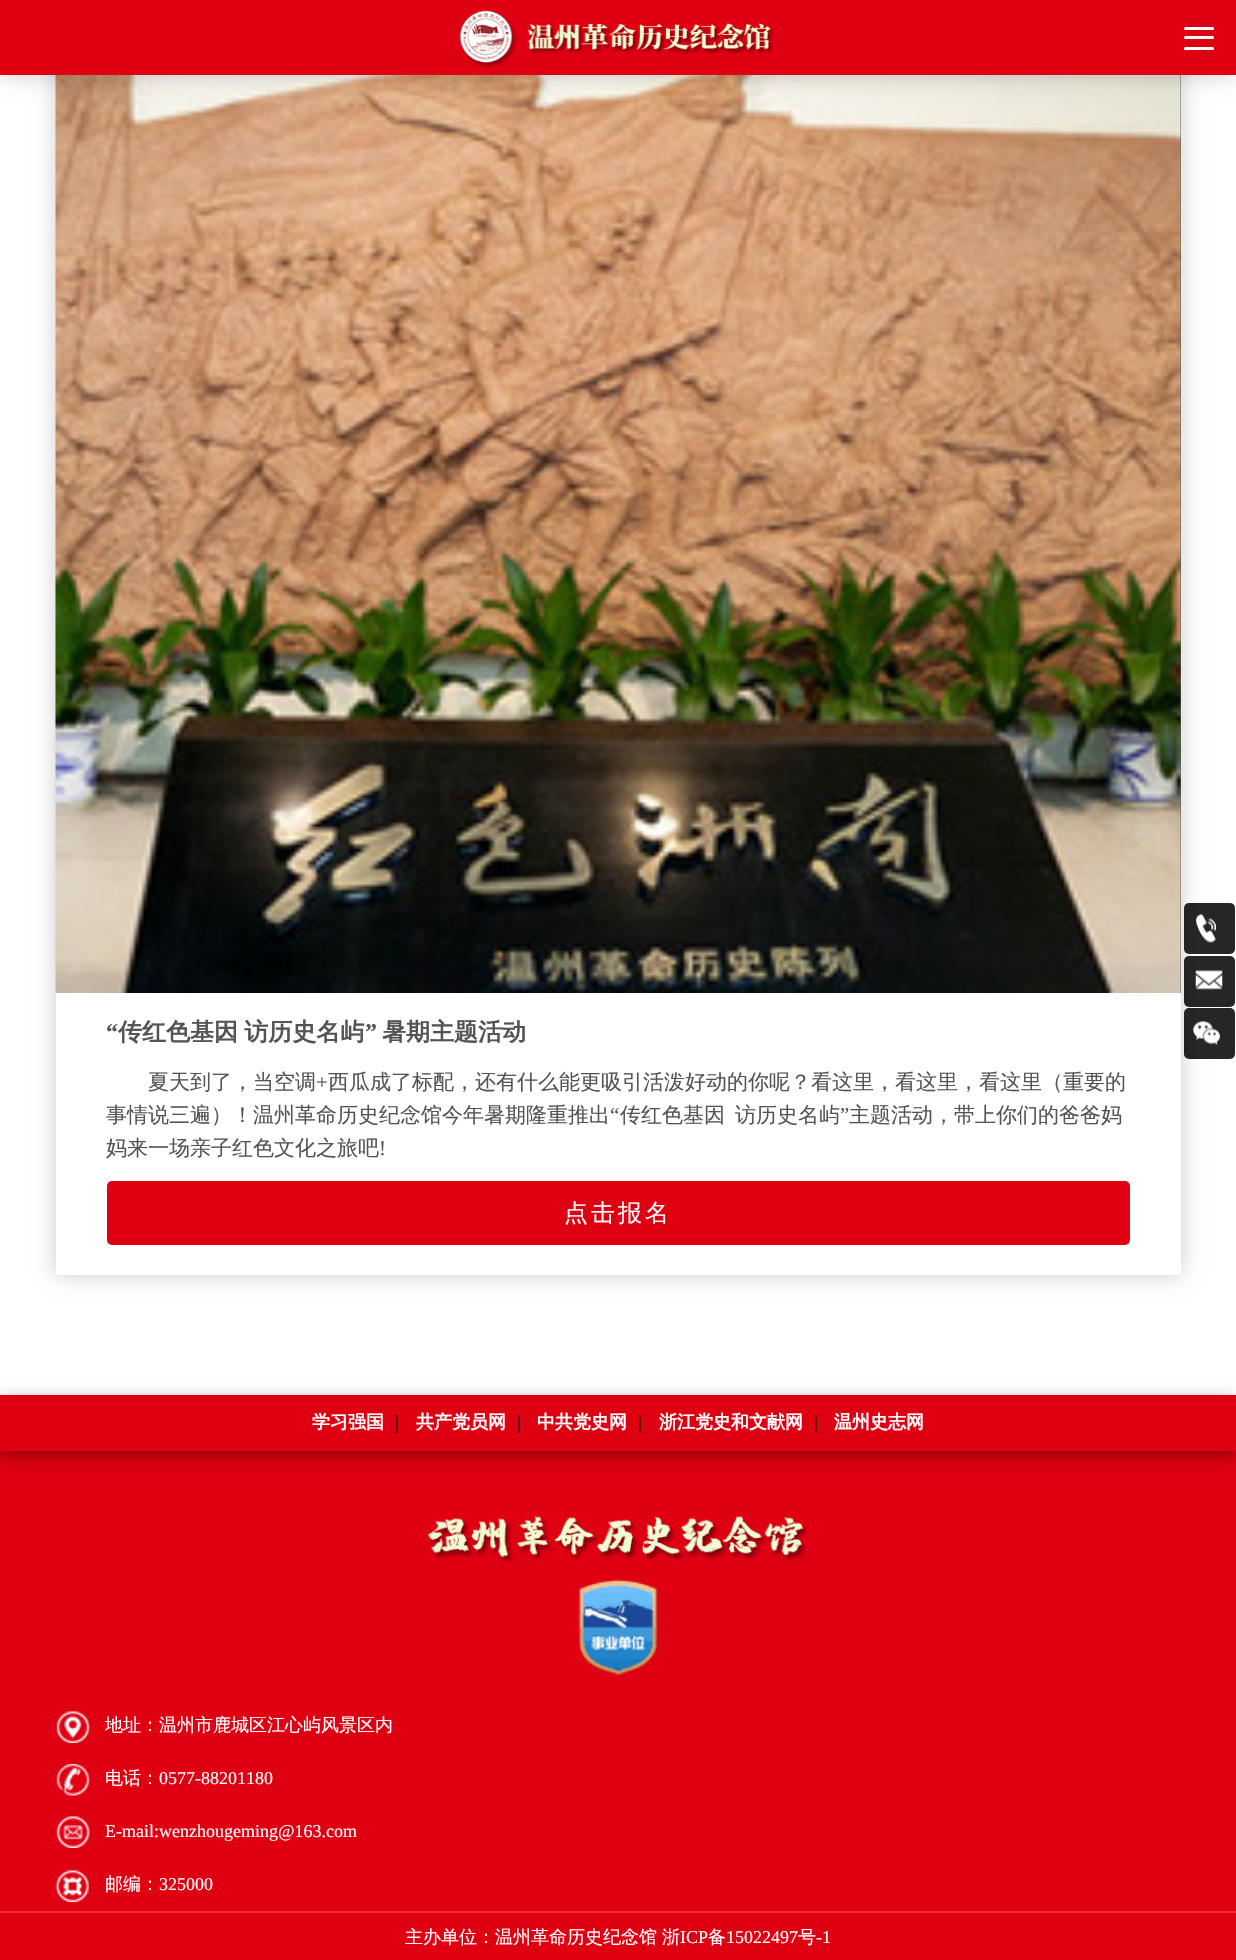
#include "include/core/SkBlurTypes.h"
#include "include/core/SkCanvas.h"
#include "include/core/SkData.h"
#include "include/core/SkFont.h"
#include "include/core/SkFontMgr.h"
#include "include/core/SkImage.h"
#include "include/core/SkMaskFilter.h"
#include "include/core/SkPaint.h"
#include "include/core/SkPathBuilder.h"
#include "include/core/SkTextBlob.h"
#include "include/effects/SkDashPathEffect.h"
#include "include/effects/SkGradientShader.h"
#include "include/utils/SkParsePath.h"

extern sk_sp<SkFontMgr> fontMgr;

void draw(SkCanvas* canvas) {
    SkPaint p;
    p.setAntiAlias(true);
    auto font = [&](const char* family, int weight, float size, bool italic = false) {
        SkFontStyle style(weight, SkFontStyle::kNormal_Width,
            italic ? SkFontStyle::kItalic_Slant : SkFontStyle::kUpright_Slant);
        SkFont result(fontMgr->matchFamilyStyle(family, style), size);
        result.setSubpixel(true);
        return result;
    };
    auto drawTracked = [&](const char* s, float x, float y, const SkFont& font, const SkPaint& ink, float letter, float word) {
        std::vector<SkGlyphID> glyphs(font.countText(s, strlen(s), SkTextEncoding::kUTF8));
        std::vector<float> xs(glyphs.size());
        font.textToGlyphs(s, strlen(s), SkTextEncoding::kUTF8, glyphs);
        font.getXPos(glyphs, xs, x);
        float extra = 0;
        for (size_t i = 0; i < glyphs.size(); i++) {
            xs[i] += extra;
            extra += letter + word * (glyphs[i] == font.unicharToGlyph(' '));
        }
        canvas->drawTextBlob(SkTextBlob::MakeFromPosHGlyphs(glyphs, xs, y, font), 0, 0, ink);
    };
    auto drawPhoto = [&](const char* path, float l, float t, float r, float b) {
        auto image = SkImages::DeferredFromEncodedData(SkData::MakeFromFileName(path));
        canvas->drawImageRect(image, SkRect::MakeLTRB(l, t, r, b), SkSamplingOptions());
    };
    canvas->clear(0xFFFFFFFF);
    canvas->save();
    canvas->clipPath(SkPathBuilder(SkPathFillType::kEvenOdd).moveTo(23, 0).lineTo(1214, 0).lineTo(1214, 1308).lineTo(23, 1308).close().moveTo(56, 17).lineTo(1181, 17).lineTo(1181, 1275).lineTo(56, 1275).close().detach(), true);
    p.setColor(0x33000000);
    p.setMaskFilter(SkMaskFilter::MakeBlur(kNormal_SkBlurStyle, 10.5f));
    canvas->drawRect(SkRect::MakeLTRB(56, 17, 1181, 1275), p);
    p.setMaskFilter(nullptr);
    canvas->restore();
    p.setColor(0xFF666666);
    canvas->drawRect(SkRect::MakeLTRB(1180, 75, 1181, 993), p);
    drawPhoto("media/5.png", 55, 75, 1181, 993);
    p.setColor(0x33000000);
    p.setMaskFilter(SkMaskFilter::MakeBlur(kNormal_SkBlurStyle, 10.5f));
    canvas->drawRect(SkRect::MakeLTRB(0, 0, 1236, 75), p);
    p.setMaskFilter(nullptr);
    p.setColor(0xFFDF0012);
    canvas->drawRect(SkRect::MakeLTRB(0, 0, 1236, 75), p);
    drawPhoto("media/1.png", 459, 10, 774, 68);
    p.setColor(0xFFFFFFFF);
    canvas->drawRoundRect(SkRect::MakeLTRB(1184, 27, 1214, 30), 1.5f, 1.5f, p);
    canvas->drawRoundRect(SkRect::MakeLTRB(1184, 36, 1214, 39), 1.5f, 1.5f, p);
    canvas->drawRoundRect(SkRect::MakeLTRB(1184, 47, 1214, 50), 1.5f, 1.5f, p);
    p.setColor(0xD9000000);
    canvas->drawRoundRect(SkRect::MakeLTRB(1184, 903, 1235, 954), 5, 5, p);
    drawPhoto("media/2.png", 1196, 914, 1216, 943);
    canvas->drawRoundRect(SkRect::MakeLTRB(1184, 956, 1235, 1007), 5, 5, p);
    drawPhoto("media/3.png", 1195, 970, 1223, 990);
    canvas->drawRoundRect(SkRect::MakeLTRB(1184, 1008, 1235, 1059), 5, 5, p);
    drawPhoto("media/4.png", 1193, 1020, 1220, 1045);
    auto font1 = font("Liberation Serif", 700, 24);
    p.setColor(0xFF545454);
    canvas->drawString("“", 106, 1040, font1, p);
    auto font2 = font("WenQuanYi Zen Hei", 700, 24);
    drawTracked("传红色基因 访历史名屿", 118, 1040, font2, p, 0, -1);
    canvas->drawString("”", 365, 1040, font1, p);
    canvas->drawString("暑期主题活动", 382, 1040, font2, p);
    auto font3 = font("WenQuanYi Zen Hei", 500, 21);
    canvas->drawString("夏天到了，当空调", 148, 1089, font3, p);
    auto font4 = font("Liberation Serif", 400, 21);
    canvas->drawString("+", 316, 1089, font4, p);
    canvas->drawString("西瓜成了标配，还有什么能更吸引活泼好动的你呢？看这里，看这里，看这里（重要的", 328, 1089, font3, p);
    canvas->drawString("事情说三遍）！温州革命历史纪念馆今年暑期隆重推出", 106, 1122, font3, p);
    canvas->drawString("“", 610, 1122, font4, p);
    canvas->drawString("传红色基因", 620, 1122, font3, p);
    canvas->drawString("访历史名屿", 735, 1122, font3, p);
    canvas->drawString("”", 840, 1122, font4, p);
    canvas->drawString("主题活动，带上你们的爸爸妈", 849, 1122, font3, p);
    canvas->drawString("妈来一场亲子红色文化之旅吧", 106, 1155, font3, p);
    canvas->drawString("!", 379, 1155, font4, p);
    p.setColor(0xFFDF0012);
    canvas->drawRoundRect(SkRect::MakeLTRB(107, 1181, 1130, 1245), 5, 5, p);
    auto font5 = font("WenQuanYi Zen Hei", 500, 24);
    p.setColor(0xFFFFFFFF);
    drawTracked("点击报名", 564, 1221, font5, p, 3, 0);
    p.setColor(0xFFDF0012);
    canvas->drawRect(SkRect::MakeLTRB(0, 1395, 1236, 1960), p);
    canvas->save();
    canvas->clipPath(SkPathBuilder(SkPathFillType::kEvenOdd).moveTo(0, 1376).lineTo(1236, 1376).lineTo(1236, 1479).lineTo(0, 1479).close().moveTo(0, 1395).lineTo(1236, 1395).lineTo(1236, 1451).lineTo(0, 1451).close().detach(), true);
    p.setColor(0x66000000);
    p.setMaskFilter(SkMaskFilter::MakeBlur(kNormal_SkBlurStyle, 7.5f));
    canvas->drawRect(SkRect::MakeLTRB(0, 1400, 1236, 1455), p);
    p.setMaskFilter(nullptr);
    canvas->restore();
    auto font6 = font("WenQuanYi Zen Hei", 700, 18);
    p.setColor(0xFFFFFFFF);
    canvas->drawString("学习强国", 312, 1428, font6, p);
    p.setColor(0xFF5D0606);
    canvas->drawRect(SkRect::MakeLTRB(396, 1415, 398, 1433), p);
    p.setColor(0xFFFFFFFF);
    canvas->drawString("共产党员网", 416, 1428, font6, p);
    p.setColor(0xFF5D0606);
    canvas->drawRect(SkRect::MakeLTRB(518, 1415, 520, 1433), p);
    p.setColor(0xFFFFFFFF);
    canvas->drawString("中共党史网", 537, 1428, font6, p);
    p.setColor(0xFF5D0606);
    canvas->drawRect(SkRect::MakeLTRB(639, 1415, 641, 1433), p);
    p.setColor(0xFFFFFFFF);
    canvas->drawString("浙江党史和文献网", 659, 1428, font6, p);
    p.setColor(0xFF5D0606);
    canvas->drawRect(SkRect::MakeLTRB(815, 1415, 817, 1433), p);
    p.setColor(0xFFFFFFFF);
    canvas->drawString("温州史志网", 834, 1428, font6, p);
    drawPhoto("media/6.png", 427, 1516, 808, 1564);
    drawPhoto("media/7.png", 578, 1579, 658, 1676);
    drawPhoto("media/8.png", 56, 1711, 90, 1743);
    auto font7 = font("WenQuanYi Zen Hei", 500, 18);
    canvas->drawString("地址：温州市鹿城区江心屿风景区内", 105, 1731, font7, p);
    drawPhoto("media/9.png", 56, 1764, 90, 1796);
    canvas->drawString("电话：", 105, 1784, font7, p);
    auto font8 = font("Liberation Serif", 400, 18);
    canvas->drawString("0577-88201180", 159, 1784, font8, p);
    drawPhoto("media/10.png", 56, 1816, 90, 1848);
    canvas->drawString("E-mail:wenzhougeming@163.com", 105, 1837, font8, p);
    drawPhoto("media/11.png", 55, 1870, 89, 1902);
    canvas->drawString("邮编：", 105, 1890, font7, p);
    canvas->drawString("325000", 159, 1890, font8, p);
    p.setColor(0xFFF92936);
    canvas->drawRect(SkRect::MakeLTRB(0, 1911, 1236, 1913), p);
    p.setColor(0xFFFFFFFF);
    canvas->drawString("主办单位：温州革命历史纪念馆", 405, 1943, font7, p);
    canvas->drawString("浙", 662, 1943, font7, p);
    canvas->drawString("ICP", 680, 1943, font8, p);
    canvas->drawString("备", 708, 1943, font7, p);
    canvas->drawString("15022497", 726, 1943, font8, p);
    canvas->drawString("号", 798, 1943, font7, p);
    canvas->drawString("-1", 816, 1943, font8, p);
}
